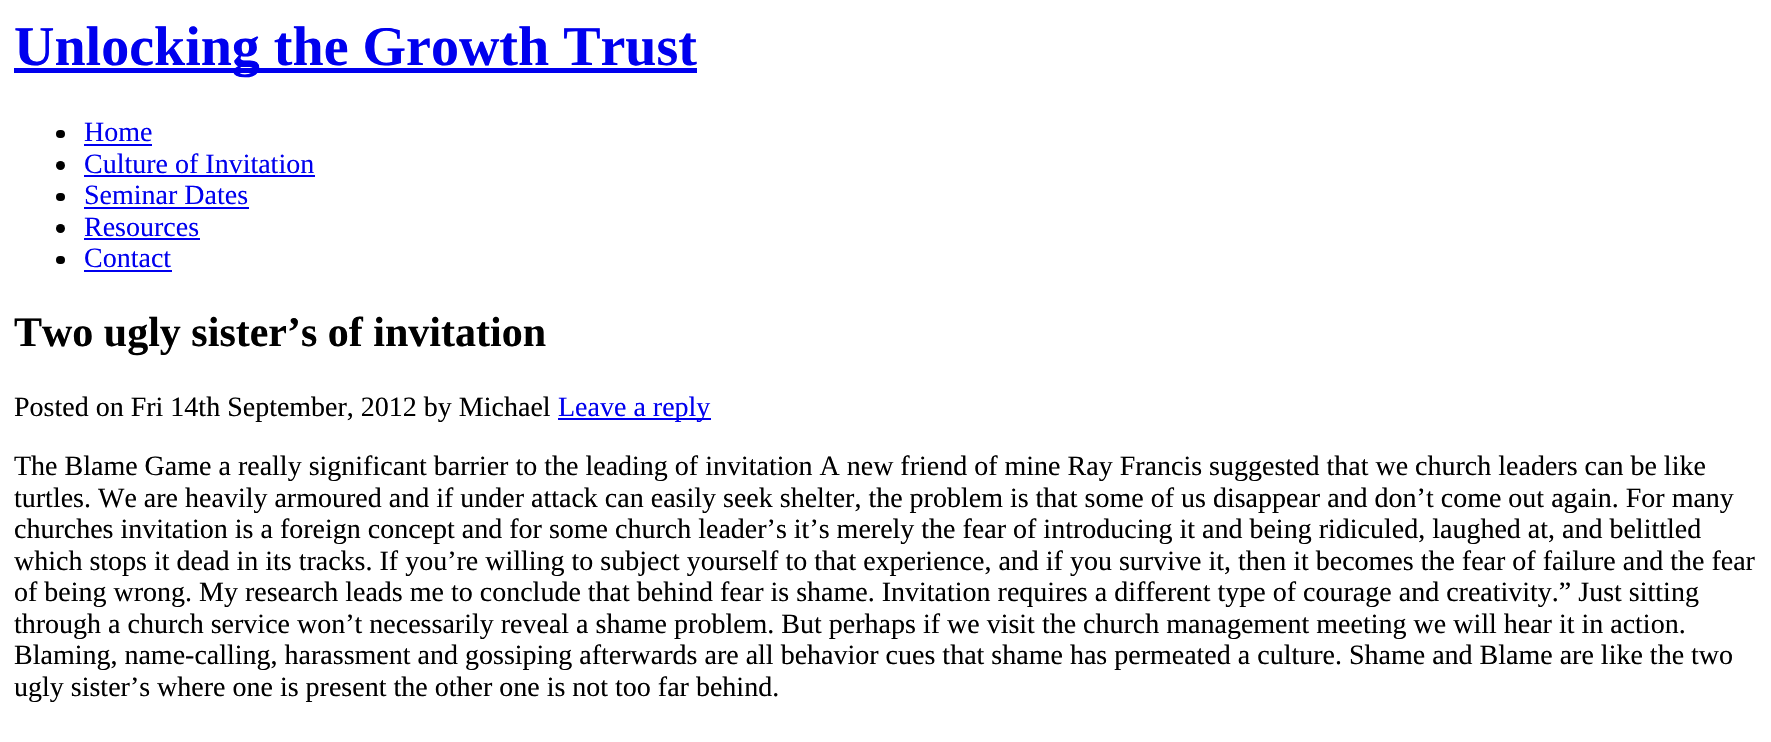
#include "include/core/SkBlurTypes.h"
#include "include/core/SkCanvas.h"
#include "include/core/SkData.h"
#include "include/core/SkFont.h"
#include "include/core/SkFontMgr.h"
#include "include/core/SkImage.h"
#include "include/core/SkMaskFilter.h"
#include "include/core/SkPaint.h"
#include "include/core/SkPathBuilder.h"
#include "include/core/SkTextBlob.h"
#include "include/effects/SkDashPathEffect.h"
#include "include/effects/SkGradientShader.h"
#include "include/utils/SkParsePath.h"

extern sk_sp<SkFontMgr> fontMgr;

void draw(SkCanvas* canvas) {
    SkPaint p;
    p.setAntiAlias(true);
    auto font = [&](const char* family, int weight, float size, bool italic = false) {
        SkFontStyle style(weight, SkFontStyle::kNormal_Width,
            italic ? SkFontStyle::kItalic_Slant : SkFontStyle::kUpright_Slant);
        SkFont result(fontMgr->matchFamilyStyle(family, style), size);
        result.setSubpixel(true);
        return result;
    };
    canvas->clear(0xFFFFFFFF);
    p.setColor(0xFF0000EE);
    canvas->drawRect(SkRect::MakeLTRB(14, 68, 697, 73), p);
    auto font1 = font("Liberation Serif", 700, 56);
    canvas->drawString("Unlocking the Growth Trust", 14, 65, font1, p);
    p.setColor(0xFF000000);
    canvas->drawRoundRect(SkRect::MakeLTRB(56, 130, 65, 138), 4, 4, p);
    auto font2 = font("Liberation Serif", 400, 28);
    p.setColor(0xFF0000EE);
    canvas->drawString("Home", 84, 141, font2, p);
    canvas->drawRect(SkRect::MakeLTRB(84, 144, 152, 146), p);
    p.setColor(0xFF000000);
    canvas->drawCircle(60.5f, 165.5f, 4.5f, p);
    p.setColor(0xFF0000EE);
    canvas->drawString("Culture of Invitation", 84, 173, font2, p);
    canvas->drawRect(SkRect::MakeLTRB(84, 175, 315, 177), p);
    p.setColor(0xFF000000);
    canvas->drawRoundRect(SkRect::MakeLTRB(56, 193, 65, 201), 4, 4, p);
    p.setColor(0xFF0000EE);
    canvas->drawString("Seminar Dates", 84, 204, font2, p);
    canvas->drawRect(SkRect::MakeLTRB(84, 207, 249, 209), p);
    p.setColor(0xFF000000);
    canvas->drawCircle(60.5f, 228.5f, 4.5f, p);
    p.setColor(0xFF0000EE);
    canvas->drawString("Resources", 84, 236, font2, p);
    canvas->drawRect(SkRect::MakeLTRB(84, 238, 200, 240), p);
    p.setColor(0xFF000000);
    canvas->drawRoundRect(SkRect::MakeLTRB(56, 256, 65, 264), 4, 4, p);
    p.setColor(0xFF0000EE);
    canvas->drawString("Contact", 84, 267, font2, p);
    canvas->drawRect(SkRect::MakeLTRB(84, 270, 172, 272), p);
    auto font3 = font("Liberation Serif", 700, 42);
    p.setColor(0xFF000000);
    canvas->drawString("Two ugly sister’s of invitation", 14, 346, font3, p);
    canvas->drawString("Posted on Fri 14th September, 2012 by Michael", 14, 416, font2, p);
    p.setColor(0xFF0000EE);
    canvas->drawRect(SkRect::MakeLTRB(558, 418, 711, 420), p);
    canvas->drawString("Leave a reply", 558, 416, font2, p);
    p.setColor(0xFF000000);
    {
        const struct { const char* s; float x, y; } items[] = {
            {"The Blame Game a really significant barrier to the leading of invitation A new friend of mine Ray Francis suggested that we church leaders can be like", 14, 475},
            {"turtles. We are heavily armoured and if under attack can easily seek shelter, the problem is that some of us disappear and don’t come out again. For many", 14, 507},
            {"churches invitation is a foreign concept and for some church leader’s it’s merely the fear of introducing it and being ridiculed, laughed at, and belittled", 14, 538},
            {"which stops it dead in its tracks. If you’re willing to subject yourself to that experience, and if you survive it, then it becomes the fear of failure and the fear", 14, 570},
            {"of being wrong. My research leads me to conclude that behind fear is shame. Invitation requires a different type of courage and creativity.” Just sitting", 14, 601},
            {"through a church service won’t necessarily reveal a shame problem. But perhaps if we visit the church management meeting we will hear it in action.", 14, 633},
            {"Blaming, name-calling, harassment and gossiping afterwards are all behavior cues that shame has permeated a culture. Shame and Blame are like the two", 14, 664},
            {"ugly sister’s where one is present the other one is not too far behind.", 14, 696},
        };
        for (auto [s, x, y] : items) {
            canvas->drawString(s, x, y, font2, p);
        }
    }
}
